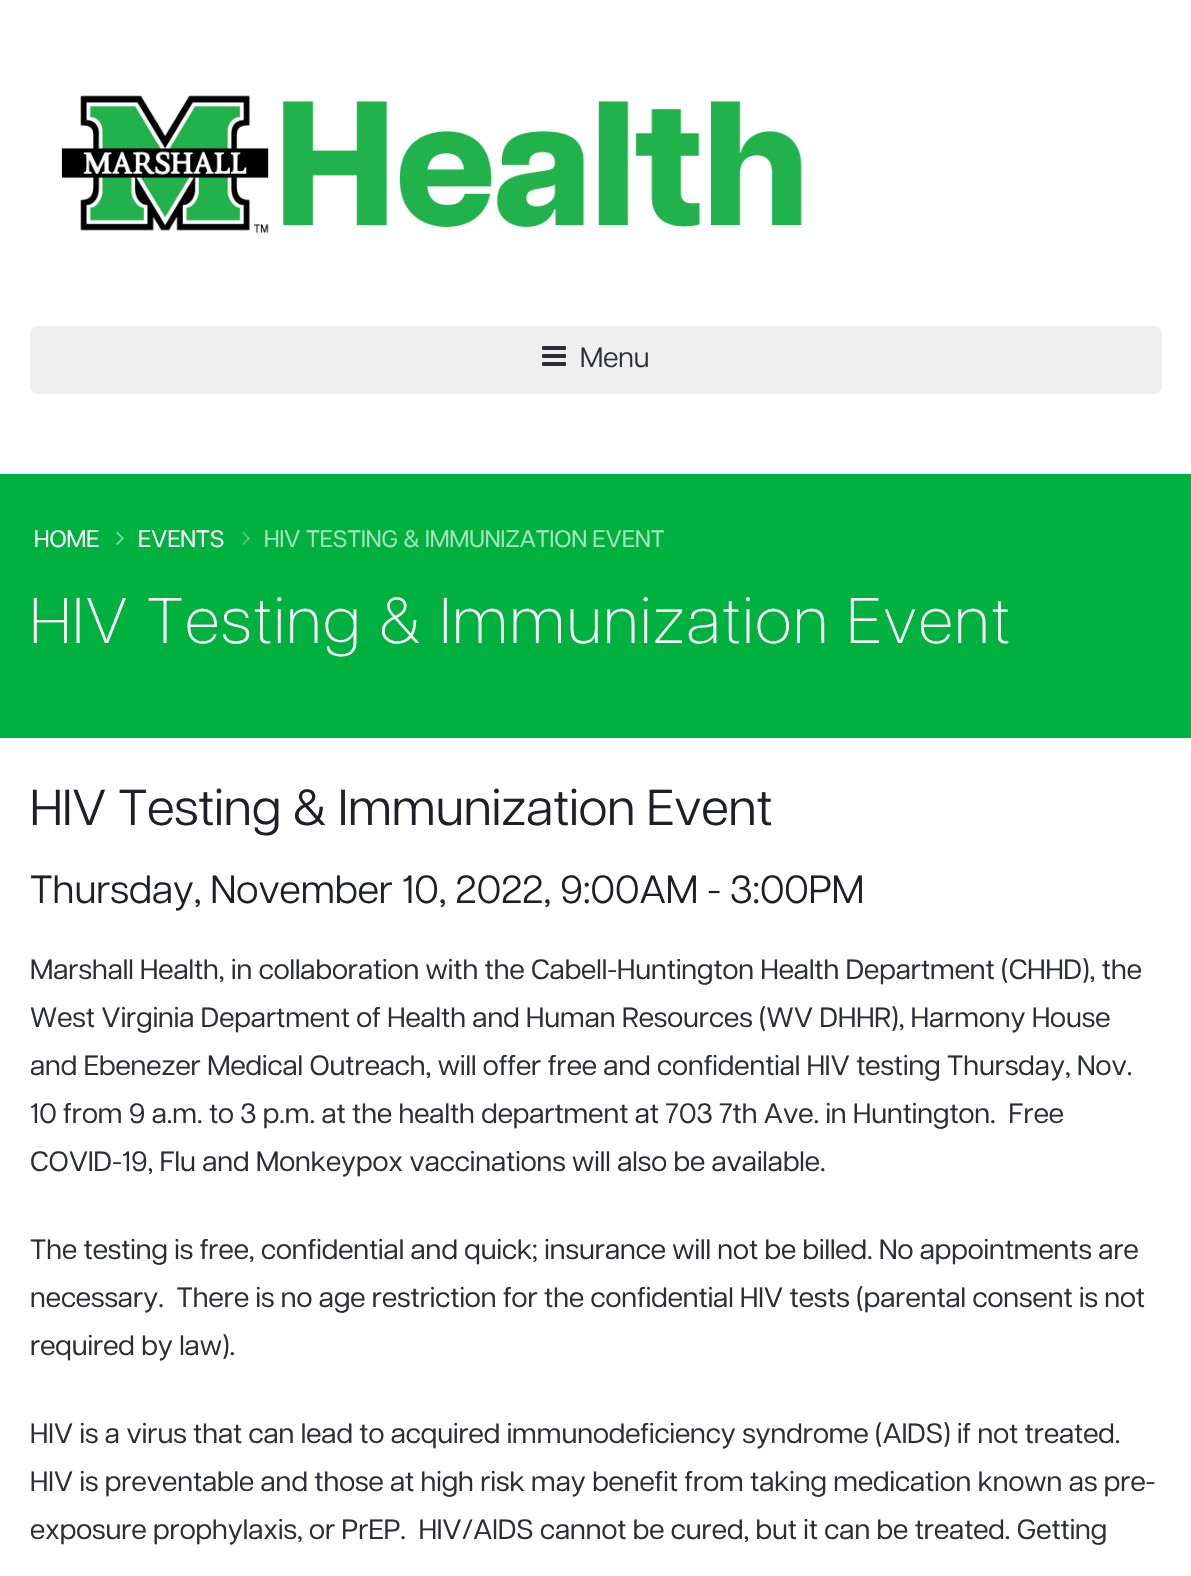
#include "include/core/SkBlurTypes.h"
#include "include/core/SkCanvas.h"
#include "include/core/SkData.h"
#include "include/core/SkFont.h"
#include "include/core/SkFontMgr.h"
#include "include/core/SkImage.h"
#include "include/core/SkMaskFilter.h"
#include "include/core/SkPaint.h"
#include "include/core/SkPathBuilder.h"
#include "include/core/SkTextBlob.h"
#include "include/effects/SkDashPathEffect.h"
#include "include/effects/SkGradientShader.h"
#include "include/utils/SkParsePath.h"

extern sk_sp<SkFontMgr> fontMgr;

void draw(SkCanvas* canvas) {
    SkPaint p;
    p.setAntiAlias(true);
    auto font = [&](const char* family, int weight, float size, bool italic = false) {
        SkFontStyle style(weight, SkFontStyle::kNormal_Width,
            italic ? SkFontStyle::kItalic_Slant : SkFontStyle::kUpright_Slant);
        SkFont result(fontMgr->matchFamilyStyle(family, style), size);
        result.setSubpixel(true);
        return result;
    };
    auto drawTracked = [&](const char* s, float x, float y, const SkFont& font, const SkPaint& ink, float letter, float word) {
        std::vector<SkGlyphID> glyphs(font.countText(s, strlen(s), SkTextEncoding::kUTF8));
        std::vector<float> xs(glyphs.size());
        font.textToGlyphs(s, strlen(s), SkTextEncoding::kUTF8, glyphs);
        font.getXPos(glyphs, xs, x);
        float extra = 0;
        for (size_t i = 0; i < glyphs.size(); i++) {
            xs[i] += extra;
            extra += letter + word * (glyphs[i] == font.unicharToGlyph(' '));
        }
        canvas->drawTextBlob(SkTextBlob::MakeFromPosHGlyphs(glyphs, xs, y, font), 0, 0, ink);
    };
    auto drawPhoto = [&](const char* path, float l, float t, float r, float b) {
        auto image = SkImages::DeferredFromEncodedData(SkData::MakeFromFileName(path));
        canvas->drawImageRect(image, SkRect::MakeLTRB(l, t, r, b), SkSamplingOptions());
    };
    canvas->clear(0xFFFFFFFF);
    drawPhoto("media/1.png", 61, 95, 802, 233);
    p.setColor(0xFFEFEFEF);
    canvas->drawRoundRect(SkRect::MakeLTRB(30, 326, 1162, 394), 8, 8, p);
    drawPhoto("media/2.png", 542, 346, 566, 366);
    auto font1 = font("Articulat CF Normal", 400, 28);
    p.setColor(0xFF2B2E34);
    canvas->drawString("Menu", 580, 367, font1, p);
    p.setColor(0xFF00B140);
    canvas->drawRect(SkRect::MakeLTRB(0, 474, 1191, 738), p);
    auto font2 = font("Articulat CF", 400, 23.75f);
    p.setColor(0xFFFFFFFF);
    canvas->drawString("HOME", 34, 547, font2, p);
    drawPhoto("media/3.png", 116, 531, 124, 545);
    canvas->drawString("EVENTS", 138, 547, font2, p);
    drawPhoto("media/4.png", 242, 531, 250, 545);
    p.setColor(0xFFA6E4BC);
    canvas->drawString("HIV TESTING & IMMUNIZATION EVENT", 264, 547, font2, p);
    auto font3 = font("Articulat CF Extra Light", 200, 64.4f);
    p.setColor(0xFFFFFFFF);
    drawTracked("HIV Testing & Immunization Event", 30, 643, font3, p, 2, 0);
    auto font4 = font("Articulat CF Normal", 400, 50.4f);
    p.setColor(0xFF1D2127);
    canvas->drawString("HIV Testing & Immunization Event", 30, 825, font4, p);
    auto font5 = font("Articulat CF Normal", 400, 39.2f);
    canvas->drawString("Thursday, November 10, 2022, 9:00AM - 3:00PM", 30, 903, font5, p);
    auto font6 = font("Articulat CF", 400, 28);
    p.setColor(0xFF2B2E34);
    {
        const struct { const char* s; float x, y; } items[] = {
            {"Marshall Health, in collaboration with the Cabell-Huntington Health Department (CHHD), the", 30, 979},
            {"West Virginia Department of Health and Human Resources (WV DHHR), Harmony House", 30, 1027},
            {"and Ebenezer Medical Outreach, will offer free and confidential HIV testing Thursday, Nov.", 30, 1075},
            {"10 from 9 a.m. to 3 p.m. at the health department at 703 7th Ave. in Huntington.  Free", 30, 1123},
            {"COVID-19, Flu and Monkeypox vaccinations will also be available.", 30, 1171},
            {"The testing is free, confidential and quick; insurance will not be billed. No appointments are", 30, 1259},
            {"necessary.  There is no age restriction for the confidential HIV tests (parental consent is not", 30, 1307},
            {"required by law).", 30, 1355},
            {"HIV is a virus that can lead to acquired immunodeficiency syndrome (AIDS) if not treated.", 30, 1443},
            {"HIV is preventable and those at high risk may benefit from taking medication known as pre-", 30, 1491},
            {"exposure prophylaxis, or PrEP.  HIV/AIDS cannot be cured, but it can be treated. Getting", 30, 1539},
        };
        for (auto [s, x, y] : items) {
            canvas->drawString(s, x, y, font6, p);
        }
    }
}
